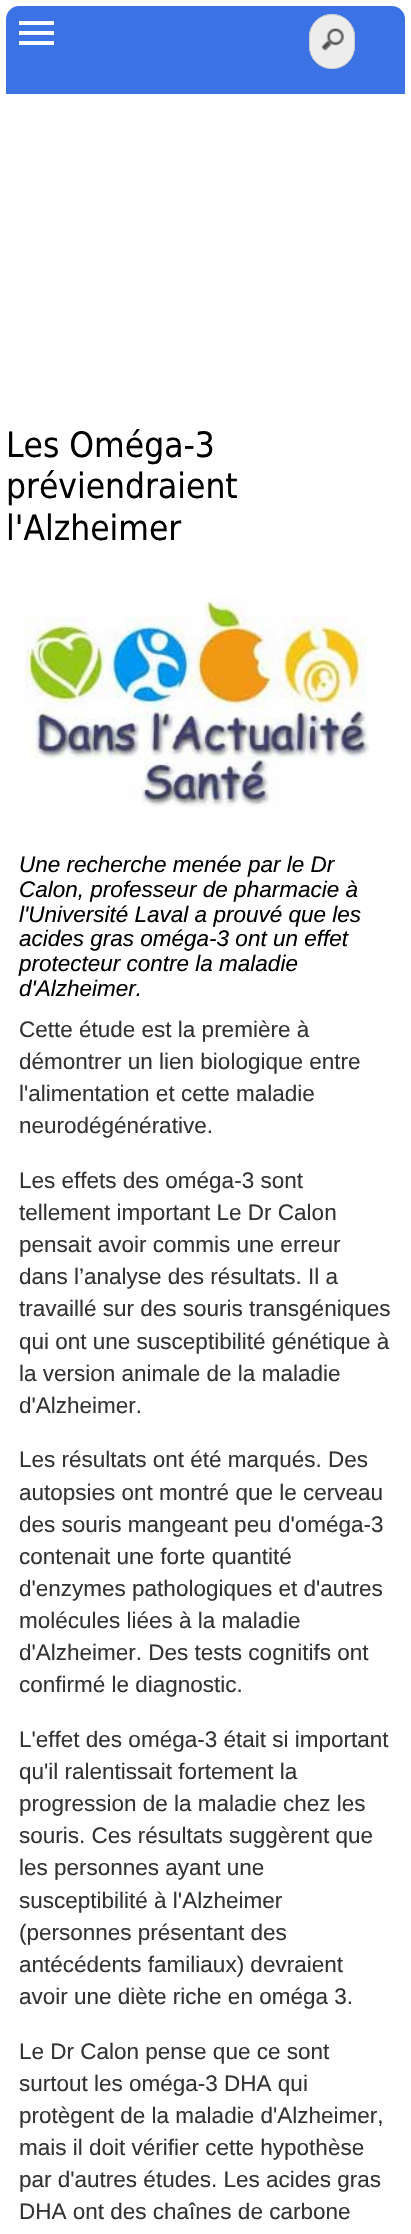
#include "include/core/SkBlurTypes.h"
#include "include/core/SkCanvas.h"
#include "include/core/SkData.h"
#include "include/core/SkFont.h"
#include "include/core/SkFontMgr.h"
#include "include/core/SkImage.h"
#include "include/core/SkMaskFilter.h"
#include "include/core/SkPaint.h"
#include "include/core/SkPathBuilder.h"
#include "include/core/SkTextBlob.h"
#include "include/effects/SkDashPathEffect.h"
#include "include/effects/SkGradientShader.h"
#include "include/utils/SkParsePath.h"

extern sk_sp<SkFontMgr> fontMgr;

void draw(SkCanvas* canvas) {
    SkPaint p;
    p.setAntiAlias(true);
    auto font = [&](const char* family, int weight, float size, bool italic = false) {
        SkFontStyle style(weight, SkFontStyle::kNormal_Width,
            italic ? SkFontStyle::kItalic_Slant : SkFontStyle::kUpright_Slant);
        SkFont result(fontMgr->matchFamilyStyle(family, style), size);
        result.setSubpixel(true);
        return result;
    };
    auto drawPhoto = [&](const char* path, float l, float t, float r, float b) {
        auto image = SkImages::DeferredFromEncodedData(SkData::MakeFromFileName(path));
        canvas->drawImageRect(image, SkRect::MakeLTRB(l, t, r, b), SkSamplingOptions());
    };
    canvas->clear(0xFFFFFFFF);
    p.setColor(0xFF3B73E4);
    canvas->drawPath(SkPathBuilder().moveTo(19, 6).lineTo(392, 6).cubicTo(399, 6, 405, 12, 405, 19).lineTo(405, 94).lineTo(6, 94).lineTo(6, 19).cubicTo(6, 12, 12, 6, 19, 6).close().detach(), p);
    p.setColor(0xFFFFFFFF);
    canvas->drawRoundRect(SkRect::MakeLTRB(19, 31, 54, 35), 0.5f, 0.5f, p);
    canvas->drawRoundRect(SkRect::MakeLTRB(19, 21, 54, 25), 0.5f, 0.5f, p);
    canvas->drawRoundRect(SkRect::MakeLTRB(19, 41, 54, 45), 0.5f, 0.5f, p);
    p.setColor(0xFFEDEDED);
    canvas->drawRoundRect(SkRect::MakeLTRB(309, 14, 355, 69), 23, 23, p);
    drawPhoto("media/1.png", 321, 28, 344, 51);
    p.setStyle(SkPaint::kStroke_Style);
    p.setStrokeWidth(1);
    p.setColor(0xFFCCCCCC);
    canvas->drawRoundRect(SkRect::MakeLTRB(309.5f, 14.5f, 354.5f, 68.5f), 22.5f, 22.5f, p);
    auto font1 = font("DejaVu Sans", 400, 35);
    p.setStyle(SkPaint::kFill_Style);
    p.setColor(0xFF000000);
    {
        const struct { const char* s; float x, y; } items[] = {
            {"Les Oméga-3", 6, 457},
            {"préviendraient", 6, 498},
            {"l'Alzheimer", 6, 540},
        };
        for (auto [s, x, y] : items) {
            canvas->drawString(s, x, y, font1, p);
        }
    }
    drawPhoto("media/2.png", 25, 597, 370, 807);
    auto font2 = font("Liberation Sans", 400, 22.5f, true);
    {
        const struct { const char* s; float x, y; } items[] = {
            {"Une recherche menée par le Dr", 19, 872},
            {"Calon, professeur de pharmacie à", 19, 897},
            {"l'Université Laval a prouvé que les", 19, 922},
            {"acides gras oméga-3 ont un effet", 19, 946},
            {"protecteur contre la maladie", 19, 971},
            {"d'Alzheimer.", 19, 996},
        };
        for (auto [s, x, y] : items) {
            canvas->drawString(s, x, y, font2, p);
        }
    }
    auto font3 = font("Liberation Sans", 400, 22.5f);
    p.setColor(0xFF333333);
    {
        const struct { const char* s; float x, y; } items[] = {
            {"Cette étude est la première à", 19, 1037},
            {"démontrer un lien biologique entre", 19, 1069},
            {"l'alimentation et cette maladie", 19, 1101},
            {"neurodégénérative.", 19, 1133},
            {"Les effets des oméga-3 sont", 19, 1188},
            {"tellement important Le Dr Calon", 19, 1220},
            {"pensait avoir commis une erreur", 19, 1252},
            {"dans l’analyse des résultats. Il a", 19, 1284},
            {"travaillé sur des souris transgéniques", 19, 1316},
            {"qui ont une susceptibilité génétique à", 19, 1349},
            {"la version animale de la maladie", 19, 1381},
            {"d'Alzheimer.", 19, 1413},
            {"Les résultats ont été marqués. Des", 19, 1467},
            {"autopsies ont montré que le cerveau", 19, 1500},
            {"des souris mangeant peu d'oméga-3", 19, 1532},
            {"contenait une forte quantité", 19, 1564},
            {"d'enzymes pathologiques et d'autres", 19, 1596},
            {"molécules liées à la maladie", 19, 1628},
            {"d'Alzheimer. Des tests cognitifs ont", 19, 1660},
            {"confirmé le diagnostic.", 19, 1692},
            {"L'effet des oméga-3 était si important", 19, 1747},
            {"qu'il ralentissait fortement la", 19, 1779},
            {"progression de la maladie chez les", 19, 1811},
            {"souris. Ces résultats suggèrent que", 19, 1843},
            {"les personnes ayant une", 19, 1875},
            {"susceptibilité à l'Alzheimer", 19, 1908},
            {"(personnes présentant des", 19, 1940},
            {"antécédents familiaux) devraient", 19, 1972},
            {"avoir une diète riche en oméga 3.", 19, 2004},
            {"Le Dr Calon pense que ce sont", 19, 2059},
            {"surtout les oméga-3 DHA qui", 19, 2091},
            {"protègent de la maladie d'Alzheimer,", 19, 2123},
            {"mais il doit vérifier cette hypothèse", 19, 2155},
            {"par d'autres études. Les acides gras", 19, 2187},
            {"DHA ont des chaînes de carbone", 19, 2219},
        };
        for (auto [s, x, y] : items) {
            canvas->drawString(s, x, y, font3, p);
        }
    }
}
